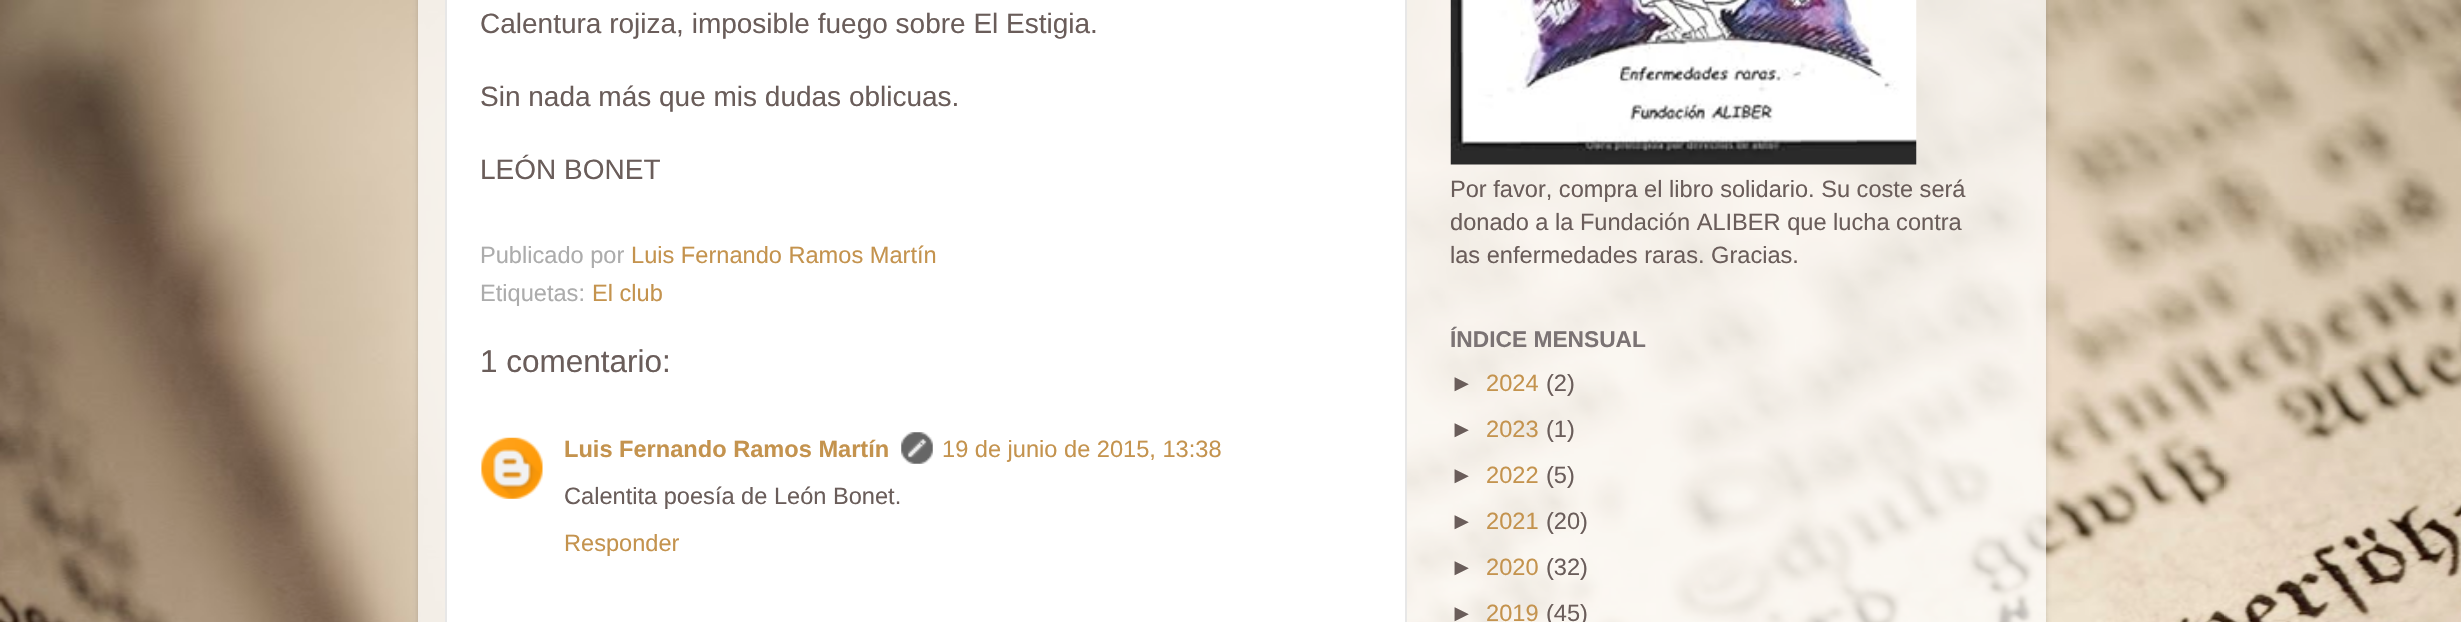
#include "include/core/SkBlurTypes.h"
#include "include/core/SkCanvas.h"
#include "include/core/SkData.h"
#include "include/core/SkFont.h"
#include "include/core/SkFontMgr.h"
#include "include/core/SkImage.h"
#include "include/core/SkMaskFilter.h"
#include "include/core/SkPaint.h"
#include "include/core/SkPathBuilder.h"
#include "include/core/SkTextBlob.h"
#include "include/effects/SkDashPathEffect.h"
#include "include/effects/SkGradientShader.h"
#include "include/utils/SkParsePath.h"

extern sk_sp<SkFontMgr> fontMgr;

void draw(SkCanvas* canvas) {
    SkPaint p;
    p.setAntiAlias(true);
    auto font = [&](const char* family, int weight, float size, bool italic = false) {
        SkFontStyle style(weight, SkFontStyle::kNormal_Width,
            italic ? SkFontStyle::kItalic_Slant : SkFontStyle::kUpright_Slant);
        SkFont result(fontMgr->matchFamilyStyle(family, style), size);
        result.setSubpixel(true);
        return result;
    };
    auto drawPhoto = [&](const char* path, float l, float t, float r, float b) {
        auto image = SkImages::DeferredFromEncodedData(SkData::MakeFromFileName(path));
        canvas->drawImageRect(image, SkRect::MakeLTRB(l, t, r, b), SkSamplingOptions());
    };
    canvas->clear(0xFFFFFFFF);
    drawPhoto("media/1.png", 0, 0, 2461, 622);
    canvas->save();
    canvas->clipPath(SkPathBuilder(SkPathFillType::kEvenOdd).moveTo(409, 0).lineTo(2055, 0).lineTo(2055, 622).lineTo(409, 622).close().moveTo(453, -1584).lineTo(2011, -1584).cubicTo(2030.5f, -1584, 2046, -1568.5f, 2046, -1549).lineTo(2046, 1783).lineTo(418, 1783).lineTo(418, -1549).cubicTo(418, -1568.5f, 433.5f, -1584, 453, -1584).close().detach(), true);
    p.setColor(0x26000000);
    p.setMaskFilter(SkMaskFilter::MakeBlur(kNormal_SkBlurStyle, 2.5f));
    canvas->drawRoundRect(SkRect::MakeLTRB(418, -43, 2046, 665), 35, 35, p);
    p.setMaskFilter(nullptr);
    canvas->restore();
    p.setColor(0xB3FFFFFF);
    canvas->drawRect(SkRect::MakeLTRB(418, 0, 2046, 622), p);
    p.setColor(0xFFFFFFFF);
    canvas->drawRect(SkRect::MakeLTRB(446, -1, 1406, 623), p);
    p.setStyle(SkPaint::kStroke_Style);
    p.setStrokeWidth(2);
    p.setColor(0xFFE7E7E7);
    canvas->drawRect(SkRect::MakeLTRB(446, -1, 1406, 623), p);
    auto font1 = font("Liberation Sans", 400, 28);
    p.setStyle(SkPaint::kFill_Style);
    p.setColor(0xFF6A5D5A);
    {
        const struct { const char* s; float x, y; } items[] = {
            {"Calentura rojiza, imposible fuego sobre El Estigia.", 480, 33},
            {"Sin nada más que mis dudas oblicuas.", 480, 106},
            {"LEÓN BONET", 480, 179},
        };
        for (auto [s, x, y] : items) {
            canvas->drawString(s, x, y, font1, p);
        }
    }
    auto font2 = font("Liberation Sans", 400, 23.6f);
    p.setColor(0xFFACACAC);
    canvas->drawString("Publicado por", 480, 263, font2, p);
    p.setColor(0xFFC4934E);
    canvas->drawString("Luis Fernando Ramos Martín", 631, 263, font2, p);
    p.setColor(0xFFACACAC);
    canvas->drawString("Etiquetas:", 480, 301, font2, p);
    p.setColor(0xFFC4934E);
    canvas->drawString("El club", 592, 301, font2, p);
    auto font3 = font("Liberation Sans", 400, 31.5f);
    p.setColor(0xFF6A5D5A);
    canvas->drawString("1 comentario:", 480, 372, font3, p);
    drawPhoto("media/2.png", 481, 437, 543, 499);
    auto font4 = font("Liberation Sans", 700, 23.6f);
    p.setColor(0xFFC4934E);
    canvas->drawString("Luis Fernando Ramos Martín", 564, 457, font4, p);
    drawPhoto("media/3.png", 901, 432, 933, 464);
    canvas->drawString("19 de junio de 2015, 13:38", 942, 457, font2, p);
    p.setColor(0xFF6A5D5A);
    canvas->drawString("Calentita poesía de León Bonet.", 564, 504, font2, p);
    p.setColor(0xFFC4934E);
    canvas->drawString("Responder", 564, 551, font2, p);
    drawPhoto("media/4.png", 1450, 0, 1917, 165);
    p.setColor(0xFF6A5D5A);
    {
        const struct { const char* s; float x, y; } items[] = {
            {"Por favor, compra el libro solidario. Su coste será", 1450, 197},
            {"donado a la Fundación ALIBER que lucha contra", 1450, 230},
            {"las enfermedades raras. Gracias.", 1450, 263},
        };
        for (auto [s, x, y] : items) {
            canvas->drawString(s, x, y, font2, p);
        }
    }
    auto font5 = font("Liberation Sans", 700, 22.75f);
    p.setColor(0xFF7B7374);
    canvas->drawString("ÍNDICE MENSUAL", 1450, 347, font5, p);
    p.setColor(0xFF6A5D5A);
    canvas->drawString("►", 1450, 391, font2, p);
    p.setColor(0xFFC4934E);
    canvas->drawString("2024", 1486, 391, font2, p);
    p.setColor(0xFF6A5D5A);
    canvas->drawString("(2)", 1546, 391, font2, p);
    canvas->drawString("►", 1450, 437, font2, p);
    p.setColor(0xFFC4934E);
    canvas->drawString("2023", 1486, 437, font2, p);
    p.setColor(0xFF6A5D5A);
    canvas->drawString("(1)", 1546, 437, font2, p);
    canvas->drawString("►", 1450, 483, font2, p);
    p.setColor(0xFFC4934E);
    canvas->drawString("2022", 1486, 483, font2, p);
    p.setColor(0xFF6A5D5A);
    canvas->drawString("(5)", 1546, 483, font2, p);
    canvas->drawString("►", 1450, 529, font2, p);
    p.setColor(0xFFC4934E);
    canvas->drawString("2021", 1486, 529, font2, p);
    p.setColor(0xFF6A5D5A);
    canvas->drawString("(20)", 1546, 529, font2, p);
    canvas->drawString("►", 1450, 575, font2, p);
    p.setColor(0xFFC4934E);
    canvas->drawString("2020", 1486, 575, font2, p);
    p.setColor(0xFF6A5D5A);
    canvas->drawString("(32)", 1546, 575, font2, p);
    canvas->drawString("►", 1450, 621, font2, p);
    p.setColor(0xFFC4934E);
    canvas->drawString("2019", 1486, 621, font2, p);
    p.setColor(0xFF6A5D5A);
    canvas->drawString("(45)", 1546, 621, font2, p);
}
